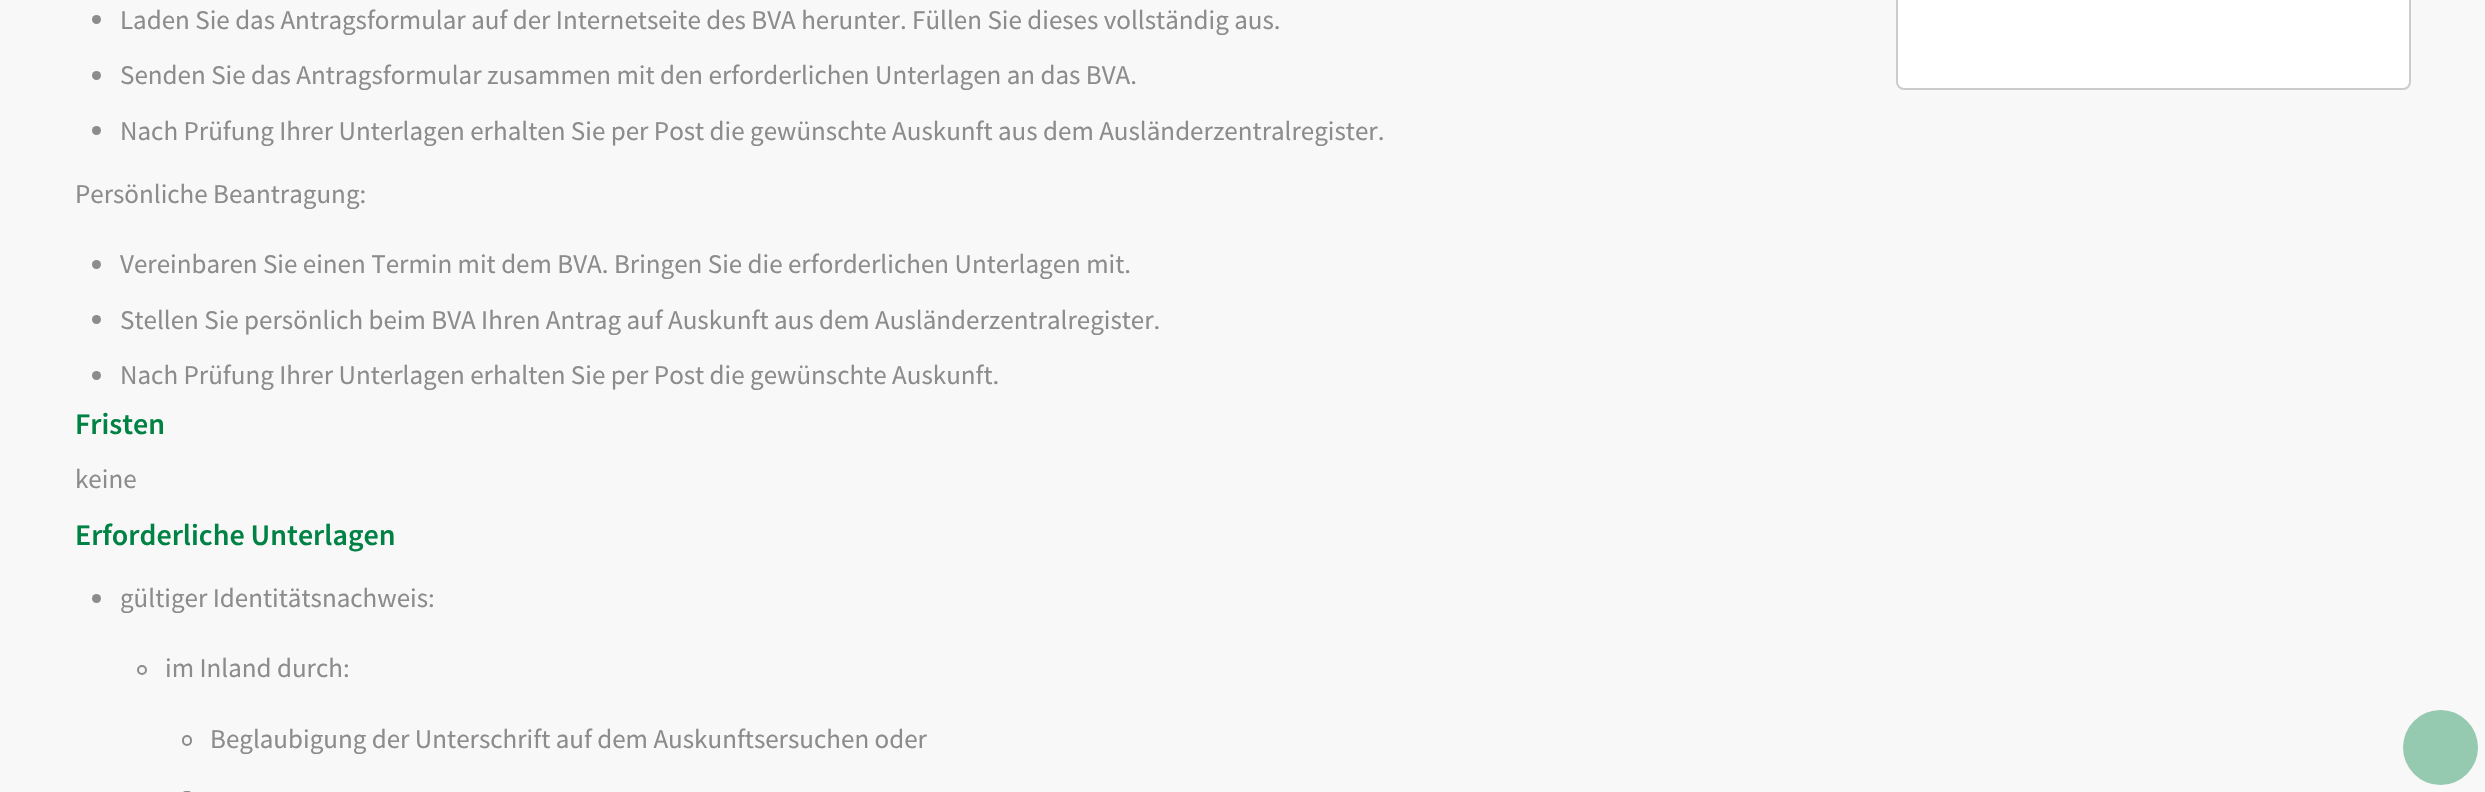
#include "include/core/SkBlurTypes.h"
#include "include/core/SkCanvas.h"
#include "include/core/SkData.h"
#include "include/core/SkFont.h"
#include "include/core/SkFontMgr.h"
#include "include/core/SkImage.h"
#include "include/core/SkMaskFilter.h"
#include "include/core/SkPaint.h"
#include "include/core/SkPathBuilder.h"
#include "include/core/SkTextBlob.h"
#include "include/effects/SkDashPathEffect.h"
#include "include/effects/SkGradientShader.h"
#include "include/utils/SkParsePath.h"

extern sk_sp<SkFontMgr> fontMgr;

void draw(SkCanvas* canvas) {
    SkPaint p;
    p.setAntiAlias(true);
    auto font = [&](const char* family, int weight, float size, bool italic = false) {
        SkFontStyle style(weight, SkFontStyle::kNormal_Width,
            italic ? SkFontStyle::kItalic_Slant : SkFontStyle::kUpright_Slant);
        SkFont result(fontMgr->matchFamilyStyle(family, style), size);
        result.setSubpixel(true);
        return result;
    };
    canvas->clear(0xFFF8F8F8);
    p.setColor(0xFF8C8C8C);
    canvas->drawCircle(96.5f, 19.5f, 4.5f, p);
    auto font1 = font("Source Sans Pro", 400, 27);
    canvas->drawString("Laden Sie das Antragsformular auf der Internetseite des BVA herunter. Füllen Sie dieses vollständig aus.", 120, 29, font1, p);
    canvas->drawCircle(96.5f, 75.5f, 4.5f, p);
    canvas->drawString("Senden Sie das Antragsformular zusammen mit den erforderlichen Unterlagen an das BVA.", 120, 84, font1, p);
    canvas->drawCircle(96.5f, 130.5f, 4.5f, p);
    canvas->drawString("Nach Prüfung Ihrer Unterlagen erhalten Sie per Post die gewünschte Auskunft aus dem Ausländerzentralregister.", 120, 140, font1, p);
    canvas->drawString("Persönliche Beantragung:", 75, 203, font1, p);
    canvas->drawCircle(96.5f, 264.5f, 4.5f, p);
    canvas->drawString("Vereinbaren Sie einen Termin mit dem BVA. Bringen Sie die erforderlichen Unterlagen mit.", 120, 273, font1, p);
    canvas->drawCircle(96.5f, 319.5f, 4.5f, p);
    canvas->drawString("Stellen Sie persönlich beim BVA Ihren Antrag auf Auskunft aus dem Ausländerzentralregister.", 120, 329, font1, p);
    canvas->drawCircle(96.5f, 375.5f, 4.5f, p);
    canvas->drawString("Nach Prüfung Ihrer Unterlagen erhalten Sie per Post die gewünschte Auskunft.", 120, 384, font1, p);
    auto font2 = font("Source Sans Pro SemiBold", 600, 30);
    p.setColor(0xFF008244);
    canvas->drawString("Fristen", 75, 434, font2, p);
    p.setColor(0xFF8C8C8C);
    canvas->drawString("keine", 75, 488, font1, p);
    p.setColor(0xFF008244);
    canvas->drawString("Erforderliche Unterlagen", 75, 545, font2, p);
    p.setColor(0xFF8C8C8C);
    canvas->drawCircle(96.5f, 598.5f, 4.5f, p);
    canvas->drawString("gültiger Identitätsnachweis:", 120, 607, font1, p);
    p.setStyle(SkPaint::kStroke_Style);
    p.setStrokeWidth(2);
    canvas->drawCircle(142, 670, 4, p);
    p.setStyle(SkPaint::kFill_Style);
    canvas->drawString("im Inland durch:", 165, 677, font1, p);
    p.setStyle(SkPaint::kStroke_Style);
    canvas->drawRoundRect(SkRect::MakeLTRB(183, 736, 191, 745), 4, 4, p);
    p.setStyle(SkPaint::kFill_Style);
    canvas->drawString("Beglaubigung der Unterschrift auf dem Auskunftsersuchen oder", 210, 748, font1, p);
    p.setStyle(SkPaint::kStroke_Style);
    canvas->drawRoundRect(SkRect::MakeLTRB(183, 792, 191, 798), 4, 4, p);
    p.setStyle(SkPaint::kFill_Style);
    p.setColor(0xFFFFFFFF);
    canvas->drawRoundRect(SkRect::MakeLTRB(1897, -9, 2410, 89), 7, 7, p);
    p.setStyle(SkPaint::kStroke_Style);
    p.setColor(0xFFCCCCCC);
    canvas->drawRoundRect(SkRect::MakeLTRB(1897, -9, 2410, 89), 7, 7, p);
    p.setStyle(SkPaint::kFill_Style);
    p.setColor(0xFF95C9B0);
    canvas->drawCircle(2440.5f, 747.5f, 37.5f, p);
}
